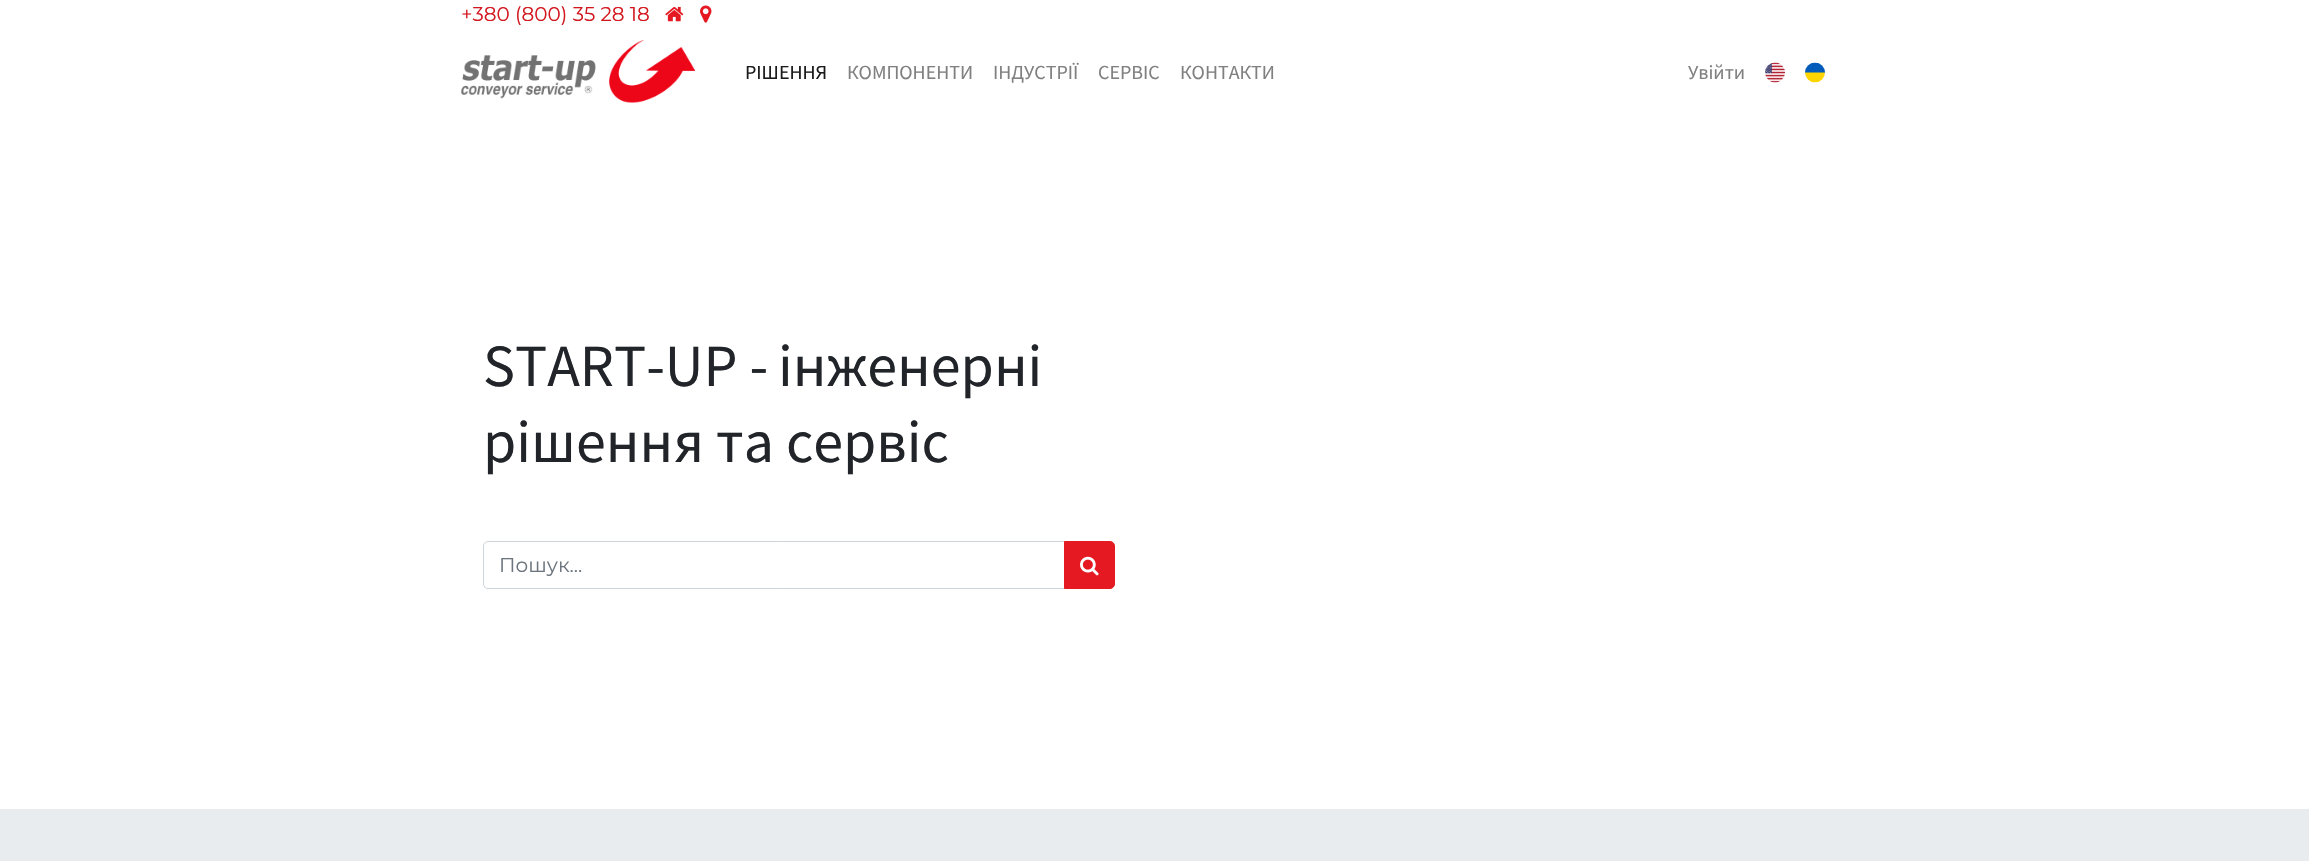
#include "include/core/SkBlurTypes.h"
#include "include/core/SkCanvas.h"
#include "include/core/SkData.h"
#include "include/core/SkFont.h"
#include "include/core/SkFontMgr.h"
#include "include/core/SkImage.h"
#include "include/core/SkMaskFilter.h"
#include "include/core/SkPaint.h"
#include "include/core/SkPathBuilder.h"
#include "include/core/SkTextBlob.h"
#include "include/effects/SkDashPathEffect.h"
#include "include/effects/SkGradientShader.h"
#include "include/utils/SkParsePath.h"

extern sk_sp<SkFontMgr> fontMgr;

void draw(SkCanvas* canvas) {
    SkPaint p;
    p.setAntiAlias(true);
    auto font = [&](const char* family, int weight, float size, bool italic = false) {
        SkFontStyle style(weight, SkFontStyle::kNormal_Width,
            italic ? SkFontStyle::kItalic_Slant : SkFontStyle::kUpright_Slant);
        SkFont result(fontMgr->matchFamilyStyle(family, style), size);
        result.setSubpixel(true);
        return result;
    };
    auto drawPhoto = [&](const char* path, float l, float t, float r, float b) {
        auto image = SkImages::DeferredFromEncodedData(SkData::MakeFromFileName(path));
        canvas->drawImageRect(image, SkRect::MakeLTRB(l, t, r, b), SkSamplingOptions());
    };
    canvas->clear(0xFFFFFFFF);
    auto font1 = font("Montserrat", 400, 20);
    p.setColor(0xFFD2171E);
    canvas->drawString("+380 (800) 35 28 18", 461, 21, font1, p);
    drawPhoto("media/1.png", 665, 6, 684, 22);
    drawPhoto("media/2.png", 700, 5, 712, 23);
    drawPhoto("media/3.png", 461, 40, 695, 103);
    auto font2 = font("Source Sans Pro", 400, 20);
    p.setColor(0xFF1A1A1A);
    canvas->drawString("РІШЕННЯ", 745, 79, font2, p);
    p.setColor(0xFF808080);
    {
        const struct { const char* s; float x, y; } items[] = {
            {"КОМПОНЕНТИ", 847, 79},
            {"ІНДУСТРІЇ", 993, 79},
            {"СЕРВІС", 1098, 79},
            {"КОНТАКТИ", 1180, 79},
            {"Увійти", 1688, 79},
        };
        for (auto [s, x, y] : items) {
            canvas->drawString(s, x, y, font2, p);
        }
    }
    drawPhoto("media/4.png", 1765, 62, 1785, 83);
    drawPhoto("media/5.png", 1805, 62, 1825, 83);
    auto font3 = font("Source Sans Pro", 400, 60);
    p.setColor(0xFF212529);
    {
        const struct { const char* s; float x, y; } items[] = {
            {"START-UP -", 483, 386},
            {"інженерні", 778, 386},
            {"рішення та сервіс", 483, 462},
        };
        for (auto [s, x, y] : items) {
            canvas->drawString(s, x, y, font3, p);
        }
    }
    p.setStyle(SkPaint::kStroke_Style);
    p.setStrokeWidth(1);
    p.setColor(0xFFCED4DA);
    canvas->drawPath(SkPathBuilder().moveTo(488, 541.5f).lineTo(1064.5f, 541.5f).lineTo(1064.5f, 588.5f).lineTo(488, 588.5f).cubicTo(485.5f, 588.5f, 483.5f, 586.5f, 483.5f, 584).lineTo(483.5f, 546).cubicTo(483.5f, 543.5f, 485.5f, 541.5f, 488, 541.5f).close().detach(), p);
    p.setStyle(SkPaint::kFill_Style);
    p.setColor(0xFF6C757D);
    canvas->drawString("Пошук...", 499, 572, font1, p);
    p.setColor(0xFFE41921);
    canvas->drawPath(SkPathBuilder().moveTo(1064.5f, 541.5f).lineTo(1110, 541.5f).cubicTo(1112.5f, 541.5f, 1114.5f, 543.5f, 1114.5f, 546).lineTo(1114.5f, 584).cubicTo(1114.5f, 586.5f, 1112.5f, 588.5f, 1110, 588.5f).lineTo(1064.5f, 588.5f).close().detach(), p);
    p.setStyle(SkPaint::kStroke_Style);
    canvas->drawPath(SkPathBuilder().moveTo(1064.5f, 541.5f).lineTo(1110, 541.5f).cubicTo(1112.5f, 541.5f, 1114.5f, 543.5f, 1114.5f, 546).lineTo(1114.5f, 584).cubicTo(1114.5f, 586.5f, 1112.5f, 588.5f, 1110, 588.5f).lineTo(1064.5f, 588.5f).close().detach(), p);
    drawPhoto("media/6.png", 1080, 556, 1099, 576);
    p.setStyle(SkPaint::kFill_Style);
    p.setColor(0xFFE9ECEF);
    canvas->drawRect(SkRect::MakeLTRB(0, 809, 2309, 861), p);
}
